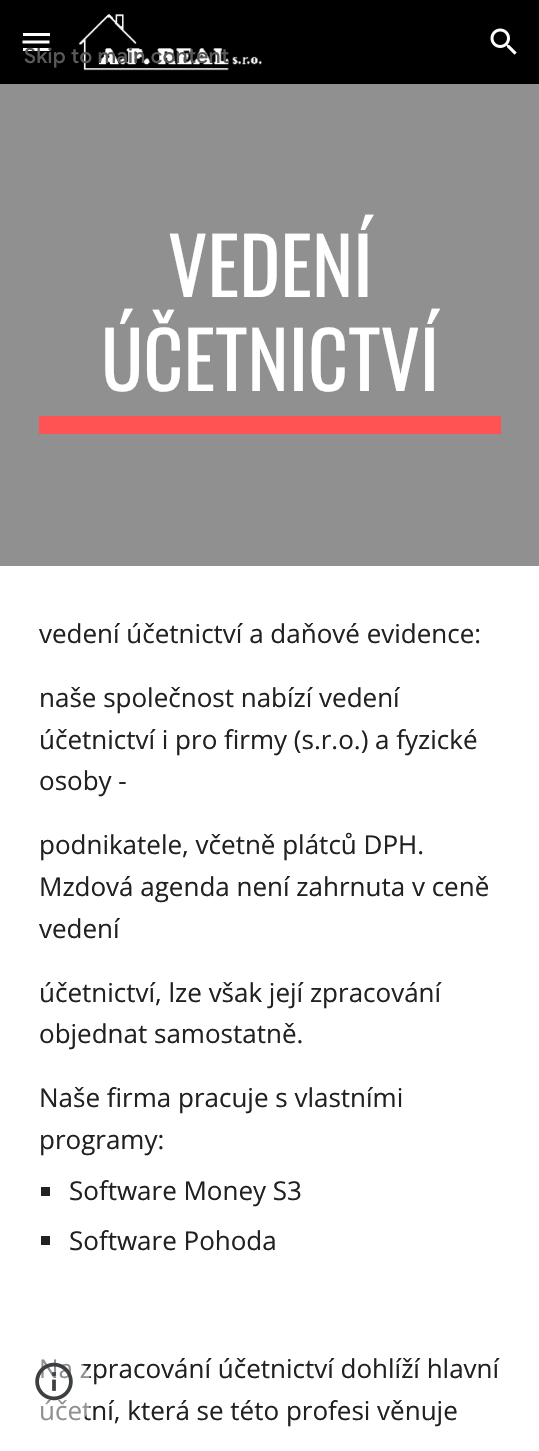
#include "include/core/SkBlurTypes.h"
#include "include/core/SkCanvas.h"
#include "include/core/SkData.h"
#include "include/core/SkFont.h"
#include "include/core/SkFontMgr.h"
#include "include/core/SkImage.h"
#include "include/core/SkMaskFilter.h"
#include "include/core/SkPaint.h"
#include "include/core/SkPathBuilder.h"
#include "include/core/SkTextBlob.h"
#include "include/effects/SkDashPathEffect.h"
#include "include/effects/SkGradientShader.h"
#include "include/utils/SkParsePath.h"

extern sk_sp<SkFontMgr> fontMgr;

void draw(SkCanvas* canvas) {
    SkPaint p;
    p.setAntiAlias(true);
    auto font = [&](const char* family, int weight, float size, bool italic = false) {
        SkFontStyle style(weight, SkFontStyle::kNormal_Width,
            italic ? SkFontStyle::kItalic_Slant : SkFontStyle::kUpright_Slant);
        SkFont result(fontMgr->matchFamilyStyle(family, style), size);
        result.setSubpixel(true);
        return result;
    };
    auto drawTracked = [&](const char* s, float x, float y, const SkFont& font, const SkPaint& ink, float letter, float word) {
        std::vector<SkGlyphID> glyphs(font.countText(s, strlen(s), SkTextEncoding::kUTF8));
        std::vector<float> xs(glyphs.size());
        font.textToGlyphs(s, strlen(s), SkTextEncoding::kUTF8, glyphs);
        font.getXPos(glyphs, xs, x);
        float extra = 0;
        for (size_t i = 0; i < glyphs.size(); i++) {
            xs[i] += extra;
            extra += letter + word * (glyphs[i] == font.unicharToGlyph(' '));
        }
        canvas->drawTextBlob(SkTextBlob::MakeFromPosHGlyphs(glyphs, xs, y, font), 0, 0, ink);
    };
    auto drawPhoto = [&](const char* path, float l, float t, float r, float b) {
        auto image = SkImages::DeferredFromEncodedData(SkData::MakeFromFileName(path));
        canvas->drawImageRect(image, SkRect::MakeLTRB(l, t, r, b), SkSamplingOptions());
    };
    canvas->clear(0xFFFFFFFF);
    p.setColor(0xFF000000);
    canvas->drawRect(SkRect::MakeLTRB(0, 0, 539, 84), p);
    drawPhoto("media/1.png", 78, 14, 262, 71);
    p.setColor(0xFFFFFFFF);
    canvas->drawRect(SkRect::MakeLTRB(23, 48, 50, 51), p);
    auto font1 = font("Google Sans", 500, 21);
    p.setColor(0xFF595959);
    drawTracked("Skip to main content", 24, 63, font1, p, 0.25f, 0);
    drawPhoto("media/2.png", 490, 28, 517, 55);
    p.setColor(0xFFFFFFFF);
    canvas->drawRect(SkRect::MakeLTRB(23, 33, 50, 36), p);
    p.setStyle(SkPaint::kStroke_Style);
    p.setStrokeWidth(3);
    canvas->drawPath(SkPathBuilder().moveTo(22.5f, 42).lineTo(49.5f, 42).detach(), p);
    p.setStyle(SkPaint::kFill_Style);
    p.setColor(0xFF909090);
    canvas->drawRect(SkRect::MakeLTRB(0, 84, 539, 566), p);
    auto font2 = font("Oswald", 400, 78);
    p.setColor(0xFFFFFFFF);
    canvas->drawString("VEDENÍ", 168, 297, font2, p);
    canvas->drawString("ÚČETNICTVÍ", 101, 391, font2, p);
    p.setColor(0xFFFF5252);
    canvas->drawRect(SkRect::MakeLTRB(39, 416, 501, 434), p);
    auto font3 = font("Open Sans", 400, 26);
    p.setColor(0xFF212121);
    {
        const struct { const char* s; float x, y; } items[] = {
            {"vedení účetnictví a daňové evidence:", 39, 643},
            {"naše společnost nabízí vedení", 39, 707},
            {"účetnictví i pro firmy (s.r.o.) a fyzické", 39, 749},
            {"osoby -", 39, 790},
            {"podnikatele, včetně plátců DPH.", 39, 854},
            {"Mzdová agenda není zahrnuta v ceně", 39, 896},
            {"vedení", 39, 938},
            {"účetnictví, lze však její zpracování", 39, 1002},
            {"objednat samostatně.", 39, 1043},
            {"Naše firma pracuje s vlastními", 39, 1107},
            {"programy:", 39, 1149},
        };
        for (auto [s, x, y] : items) {
            canvas->drawString(s, x, y, font3, p);
        }
    }
    canvas->drawRect(SkRect::MakeLTRB(41, 1187, 50, 1196), p);
    canvas->drawString("Software Money S3", 69, 1200, font3, p);
    canvas->drawRect(SkRect::MakeLTRB(41, 1236, 50, 1245), p);
    {
        const struct { const char* s; float x, y; } items[] = {
            {"Software Pohoda", 69, 1250},
            {"Na zpracování účetnictví dohlíží hlavní", 39, 1378},
            {"účetní, která se této profesi věnuje", 39, 1420},
        };
        for (auto [s, x, y] : items) {
            canvas->drawString(s, x, y, font3, p);
        }
    }
    p.setColor(0x80FFFFFF);
    canvas->drawRoundRect(SkRect::MakeLTRB(18, 1356, 90, 1428), 26, 26, p);
    drawPhoto("media/3.png", 35, 1362, 73, 1401);
}
